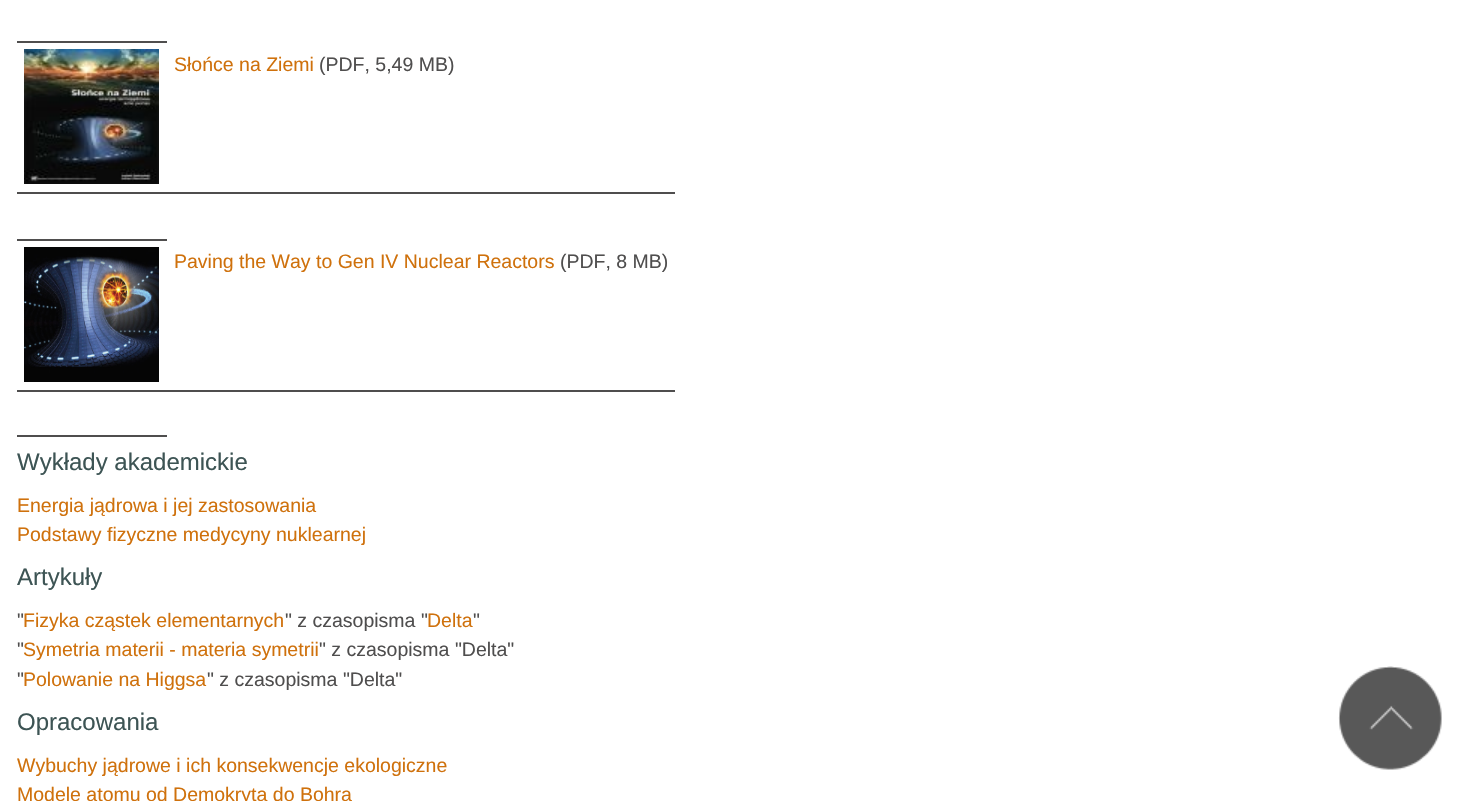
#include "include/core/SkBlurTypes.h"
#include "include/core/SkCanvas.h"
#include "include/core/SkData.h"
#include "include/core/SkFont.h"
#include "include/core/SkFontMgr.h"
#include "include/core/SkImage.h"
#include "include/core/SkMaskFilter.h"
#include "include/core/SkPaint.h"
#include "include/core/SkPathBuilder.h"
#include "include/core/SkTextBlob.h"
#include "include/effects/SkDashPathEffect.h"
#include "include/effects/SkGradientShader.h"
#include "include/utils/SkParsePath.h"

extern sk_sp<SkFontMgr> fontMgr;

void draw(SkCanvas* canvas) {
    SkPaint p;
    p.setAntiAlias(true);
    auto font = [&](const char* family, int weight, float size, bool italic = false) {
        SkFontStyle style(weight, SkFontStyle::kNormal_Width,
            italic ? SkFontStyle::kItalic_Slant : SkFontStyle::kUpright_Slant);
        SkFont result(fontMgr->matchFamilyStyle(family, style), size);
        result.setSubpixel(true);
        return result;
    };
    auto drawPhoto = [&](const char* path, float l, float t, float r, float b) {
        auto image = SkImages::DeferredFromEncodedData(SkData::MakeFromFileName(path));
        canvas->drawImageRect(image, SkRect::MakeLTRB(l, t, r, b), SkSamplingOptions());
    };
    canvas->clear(0xFFFFFFFF);
    p.setColor(0xFF4F4E4E);
    canvas->drawRect(SkRect::MakeLTRB(17, 41, 167, 43), p);
    canvas->drawRect(SkRect::MakeLTRB(17, 192, 675, 194), p);
    drawPhoto("media/1.png", 24, 49, 159, 184);
    auto font1 = font("Liberation Sans", 400, 19.5f);
    p.setColor(0xFFCF710C);
    canvas->drawString("Słońce na Ziemi", 174, 71, font1, p);
    p.setColor(0xFF4F4E4E);
    canvas->drawString("(PDF, 5,49 MB)", 319, 71, font1, p);
    canvas->drawRect(SkRect::MakeLTRB(17, 239, 167, 241), p);
    canvas->drawRect(SkRect::MakeLTRB(17, 390, 675, 392), p);
    drawPhoto("media/2.png", 24, 247, 159, 382);
    p.setColor(0xFFCF710C);
    canvas->drawString("Paving the Way to Gen IV Nuclear Reactors", 174, 268, font1, p);
    p.setColor(0xFF4F4E4E);
    canvas->drawString("(PDF, 8 MB)", 560, 268, font1, p);
    canvas->drawRect(SkRect::MakeLTRB(17, 435, 167, 437), p);
    auto font2 = font("Liberation Sans", 400, 24);
    p.setColor(0xFF3D5454);
    canvas->drawString("Wykłady akademickie", 17, 470, font2, p);
    p.setColor(0xFFCF710C);
    canvas->drawString("Energia jądrowa i jej zastosowania", 17, 512, font1, p);
    canvas->drawString("Podstawy fizyczne medycyny nuklearnej", 17, 541, font1, p);
    p.setColor(0xFF3D5454);
    canvas->drawString("Artykuły", 17, 585, font2, p);
    p.setColor(0xFF4F4E4E);
    canvas->drawString("\"", 17, 627, font1, p);
    p.setColor(0xFFCF710C);
    canvas->drawString("Fizyka cząstek elementarnych", 23, 627, font1, p);
    p.setColor(0xFF4F4E4E);
    canvas->drawString("\" z czasopisma \"", 285, 627, font1, p);
    p.setColor(0xFFCF710C);
    canvas->drawString("Delta", 427, 627, font1, p);
    p.setColor(0xFF4F4E4E);
    canvas->drawString("\"", 473, 627, font1, p);
    canvas->drawString("\"", 17, 656, font1, p);
    p.setColor(0xFFCF710C);
    canvas->drawString("Symetria materii - materia symetrii", 23, 656, font1, p);
    p.setColor(0xFF4F4E4E);
    canvas->drawString("\" z czasopisma \"Delta\"", 319, 656, font1, p);
    canvas->drawString("\"", 17, 686, font1, p);
    p.setColor(0xFFCF710C);
    canvas->drawString("Polowanie na Higgsa", 23, 686, font1, p);
    p.setColor(0xFF4F4E4E);
    canvas->drawString("\" z czasopisma \"Delta\"", 207, 686, font1, p);
    p.setColor(0xFF3D5454);
    canvas->drawString("Opracowania", 17, 730, font2, p);
    p.setColor(0xFFCF710C);
    canvas->drawString("Wybuchy jądrowe i ich konsekwencje ekologiczne", 17, 772, font1, p);
    canvas->drawString("Modele atomu od Demokryta do Bohra", 17, 801, font1, p);
    drawPhoto("media/3.png", 1338, 666, 1442, 770);
}
